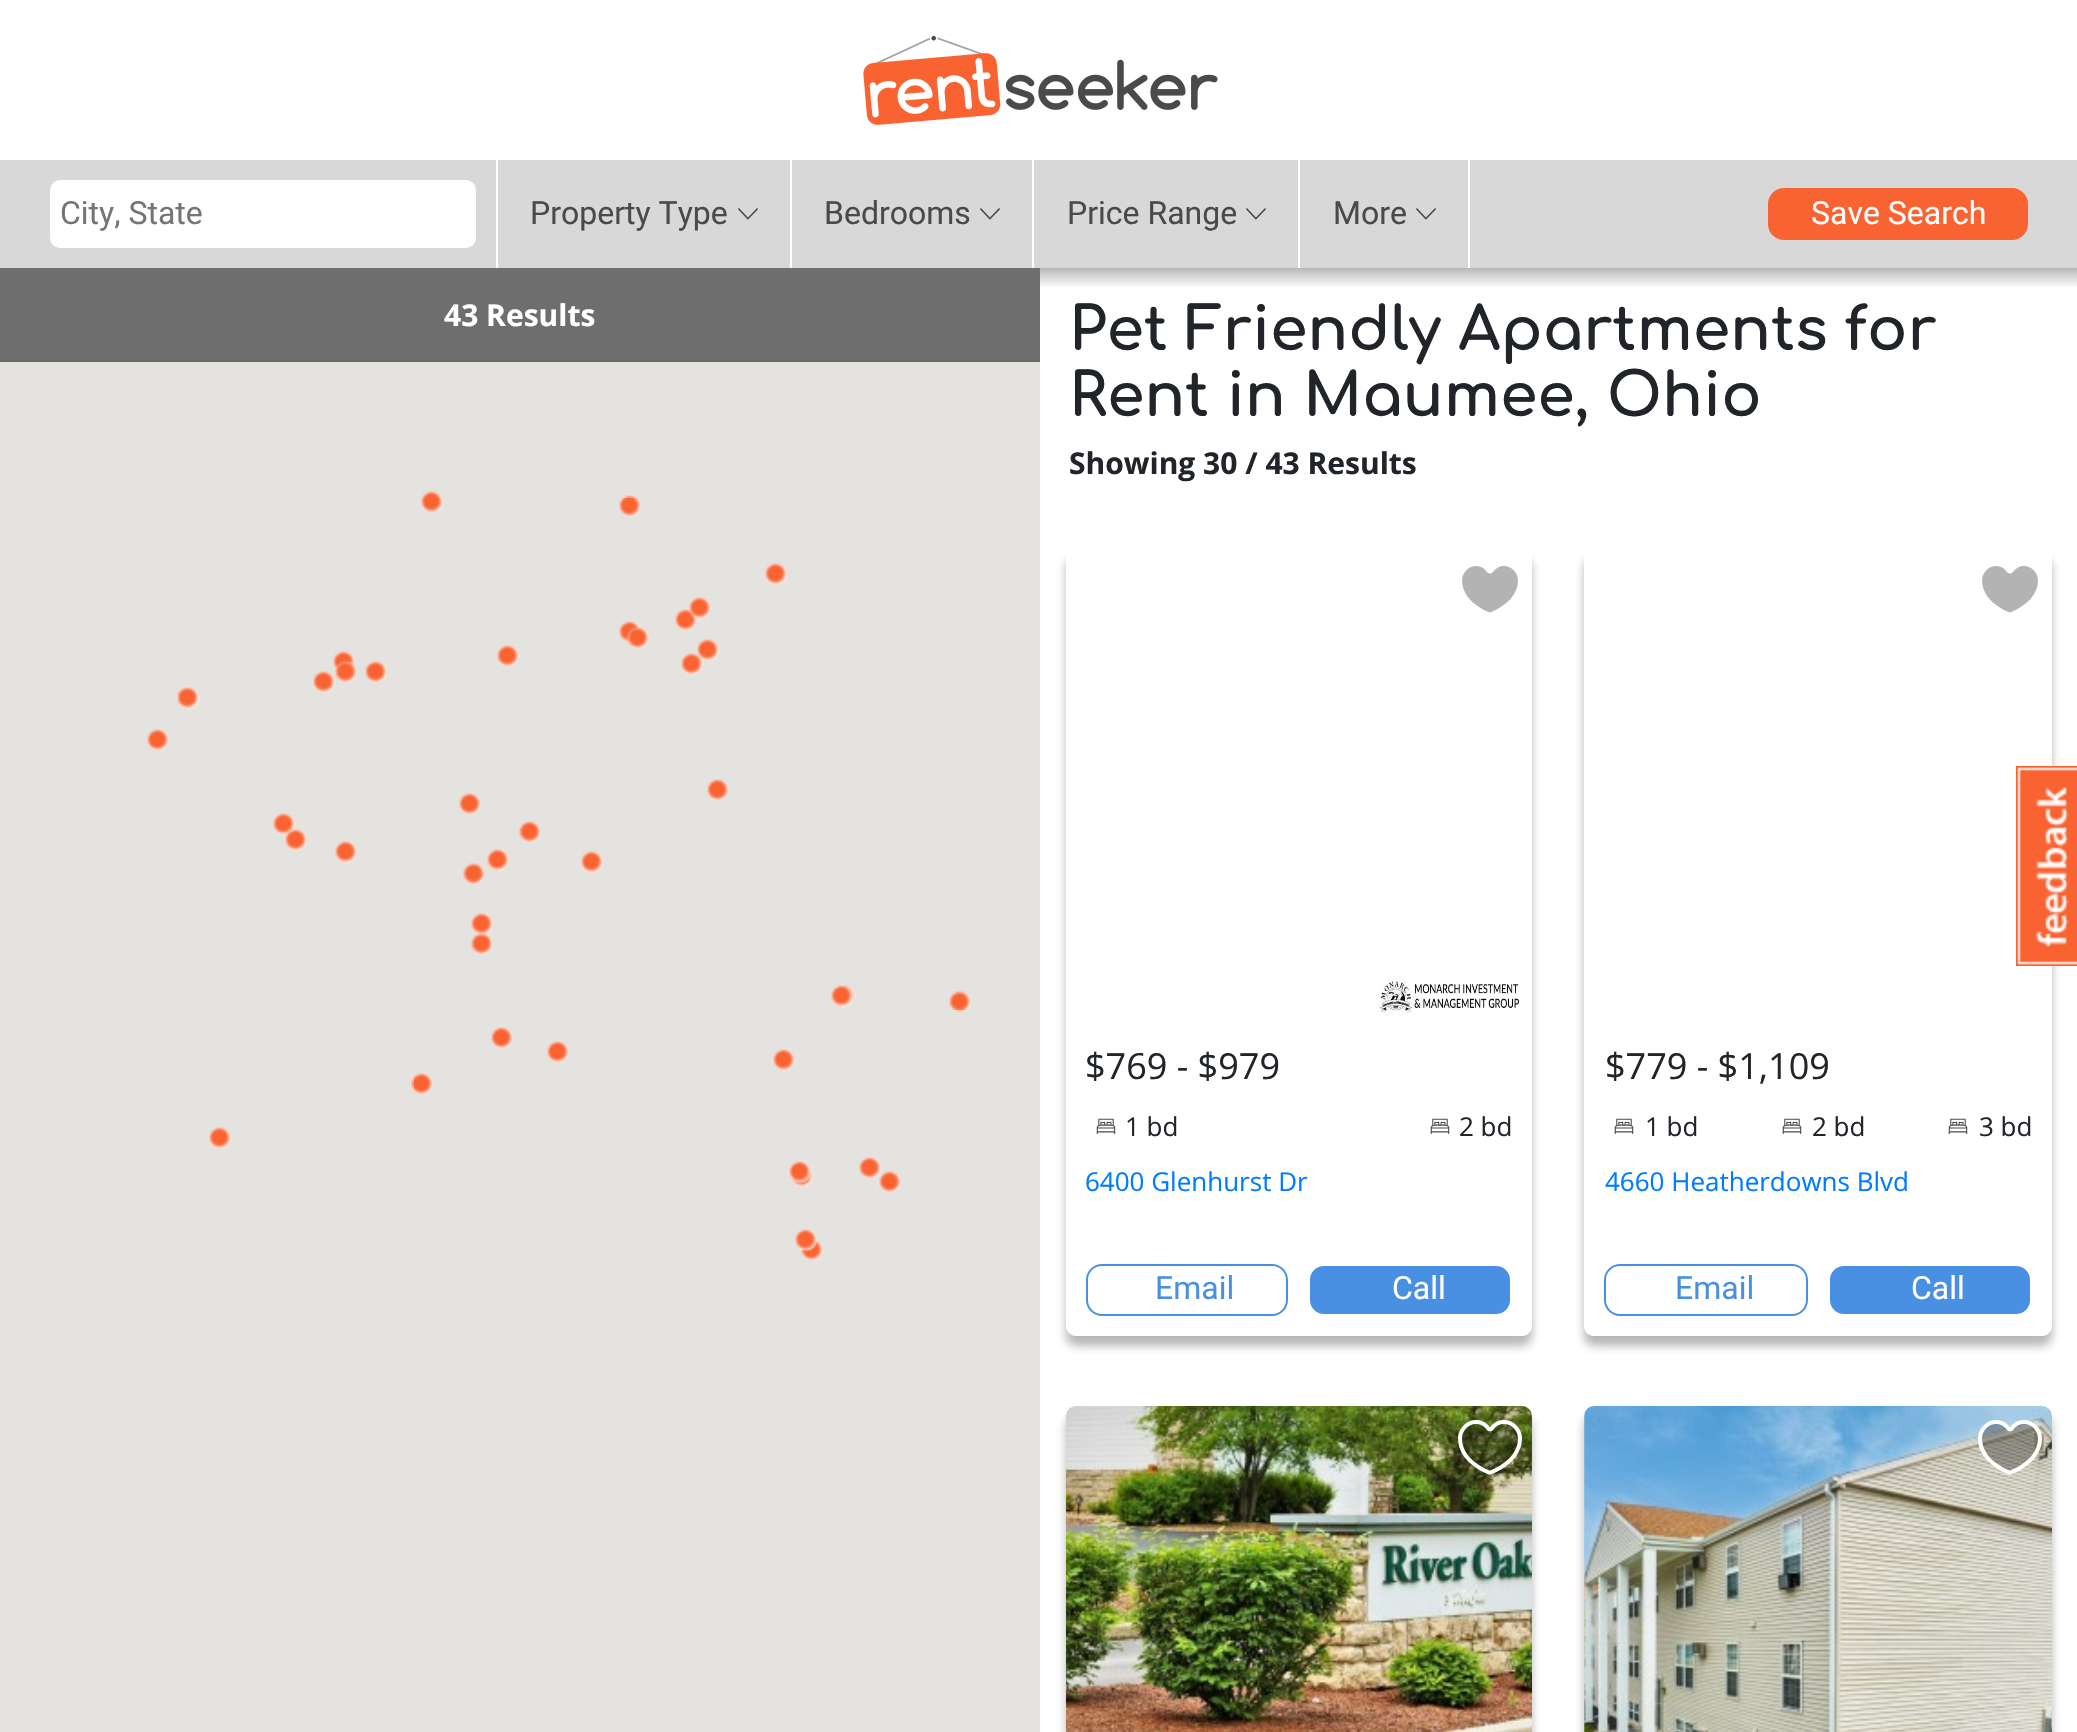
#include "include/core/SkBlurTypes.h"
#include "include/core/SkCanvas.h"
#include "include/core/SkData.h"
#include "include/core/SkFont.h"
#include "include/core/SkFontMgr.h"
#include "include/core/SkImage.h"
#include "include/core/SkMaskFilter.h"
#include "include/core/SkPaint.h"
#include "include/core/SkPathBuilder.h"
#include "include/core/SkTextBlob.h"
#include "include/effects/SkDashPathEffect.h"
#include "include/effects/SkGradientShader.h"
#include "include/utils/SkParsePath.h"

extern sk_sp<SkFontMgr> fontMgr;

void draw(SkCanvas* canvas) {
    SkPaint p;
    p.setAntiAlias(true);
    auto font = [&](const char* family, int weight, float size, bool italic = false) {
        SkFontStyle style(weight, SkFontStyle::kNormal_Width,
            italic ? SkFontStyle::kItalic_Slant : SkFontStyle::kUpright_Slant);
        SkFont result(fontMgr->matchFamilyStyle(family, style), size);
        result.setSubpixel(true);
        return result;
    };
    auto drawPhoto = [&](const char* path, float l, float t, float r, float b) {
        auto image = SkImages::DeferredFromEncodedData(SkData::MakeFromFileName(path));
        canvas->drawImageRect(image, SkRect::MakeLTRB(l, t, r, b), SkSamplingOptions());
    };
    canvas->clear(0xFFFFFFFF);
    p.setColor(0xFF6E6E6E);
    canvas->drawRect(SkRect::MakeLTRB(0, 268, 1040, 360), p);
    drawPhoto("media/1.png", 863, 35, 1218, 125);
    p.setColor(0xFFD8D8D8);
    canvas->drawRect(SkRect::MakeLTRB(0, 160, 2077, 268), p);
    p.setColor(0xFFFFFFFF);
    canvas->drawRect(SkRect::MakeLTRB(496, 160, 498, 268), p);
    canvas->drawRoundRect(SkRect::MakeLTRB(50, 180, 476, 248), 10, 10, p);
    auto font1 = font("Roboto", 400, 32);
    p.setColor(0xFF757575);
    canvas->drawString("City, State", 60, 224, font1, p);
    p.setColor(0xFFFFFFFF);
    canvas->drawRect(SkRect::MakeLTRB(790, 160, 792, 268), p);
    p.setColor(0xFF4A4A4A);
    canvas->drawString("Property Type", 530, 224, font1, p);
    drawPhoto("media/2.png", 738, 208, 758, 220);
    p.setColor(0xFFFFFFFF);
    canvas->drawRect(SkRect::MakeLTRB(1032, 160, 1034, 268), p);
    p.setColor(0xFF4A4A4A);
    canvas->drawString("Bedrooms", 824, 224, font1, p);
    drawPhoto("media/2.png", 980, 208, 1000, 220);
    p.setColor(0xFFFFFFFF);
    canvas->drawRect(SkRect::MakeLTRB(1298, 160, 1300, 268), p);
    p.setColor(0xFF4A4A4A);
    canvas->drawString("Price Range", 1067, 224, font1, p);
    drawPhoto("media/2.png", 1246, 208, 1266, 220);
    p.setColor(0xFFFFFFFF);
    canvas->drawRect(SkRect::MakeLTRB(1468, 160, 1470, 268), p);
    p.setColor(0xFF4A4A4A);
    canvas->drawString("More", 1333, 224, font1, p);
    drawPhoto("media/2.png", 1416, 208, 1436, 220);
    p.setColor(0xFFF96332);
    canvas->drawRoundRect(SkRect::MakeLTRB(1769, 189, 2027, 239), 15, 15, p);
    p.setStyle(SkPaint::kStroke_Style);
    p.setStrokeWidth(2);
    canvas->drawRoundRect(SkRect::MakeLTRB(1769, 189, 2027, 239), 15, 15, p);
    p.setStyle(SkPaint::kFill_Style);
    p.setColor(0xFFFFFFFF);
    canvas->drawString("Save Search", 1811, 224, font1, p);
    auto font2 = font("Open Sans", 700, 30);
    canvas->drawString("43 Results", 444, 326, font2, p);
    {
        const SkColor colors[] = {0xFFB7B7B7, 0xFFFFFFFF};
        const float stops[] = {0, 1};
        const SkPoint ends[] = {{1559, 268}, {1559, 288}};
        p.setShader(SkGradientShader::MakeLinear(ends, colors, stops, 2, SkTileMode::kClamp));
        p.setAlpha(255);
    }
    canvas->drawRect(SkRect::MakeLTRB(1040, 268, 2077, 287), p);
    auto font3 = font("Comfortaa", 700, 60);
    p.setShader(nullptr);
    p.setColor(0xFF212529);
    canvas->drawString("Pet Friendly Apartments for", 1069, 350, font3, p);
    canvas->drawString("Rent in Maumee, Ohio", 1069, 416, font3, p);
    canvas->drawString("Showing 30 / 43 Results", 1069, 474, font2, p);
    canvas->save();
    canvas->clipPath(SkPathBuilder(SkPathFillType::kEvenOdd).moveTo(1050, 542).lineTo(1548, 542).lineTo(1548, 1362).lineTo(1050, 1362).close().moveTo(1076, 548).lineTo(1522, 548).cubicTo(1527.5f, 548, 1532, 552.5f, 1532, 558).lineTo(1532, 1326).cubicTo(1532, 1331.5f, 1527.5f, 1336, 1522, 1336).lineTo(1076, 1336).cubicTo(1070.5f, 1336, 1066, 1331.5f, 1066, 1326).lineTo(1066, 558).cubicTo(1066, 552.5f, 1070.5f, 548, 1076, 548).close().detach(), true);
    p.setColor(0x664A4A4A);
    p.setMaskFilter(SkMaskFilter::MakeBlur(kNormal_SkBlurStyle, 5));
    canvas->drawRoundRect(SkRect::MakeLTRB(1066, 558, 1532, 1346), 10, 10, p);
    p.setMaskFilter(nullptr);
    canvas->restore();
    drawPhoto("media/3.png", 1462, 566, 1518, 613);
    drawPhoto("media/4.png", 1378, 979, 1520, 1013);
    auto font4 = font("Open Sans", 400, 36);
    p.setColor(0xFF212529);
    canvas->drawString("$769 - $979", 1085, 1079, font4, p);
    drawPhoto("media/5.png", 1096, 1118, 1116, 1134);
    auto font5 = font("Open Sans", 400, 26);
    canvas->drawString("1 bd", 1125, 1136, font5, p);
    drawPhoto("media/5.png", 1430, 1118, 1450, 1134);
    canvas->drawString("2 bd", 1459, 1136, font5, p);
    p.setColor(0xFF007BFF);
    canvas->drawString("6400 Glenhurst Dr", 1085, 1191, font5, p);
    p.setStyle(SkPaint::kStroke_Style);
    p.setColor(0xFF4A90E2);
    canvas->drawRoundRect(SkRect::MakeLTRB(1087, 1265, 1287, 1315), 15, 15, p);
    p.setStyle(SkPaint::kFill_Style);
    canvas->drawString("Email", 1155, 1299, font1, p);
    canvas->drawRoundRect(SkRect::MakeLTRB(1309, 1265, 1511, 1315), 15, 15, p);
    p.setStyle(SkPaint::kStroke_Style);
    p.setColor(0xFFFFFFFF);
    canvas->drawRoundRect(SkRect::MakeLTRB(1309, 1265, 1511, 1315), 15, 15, p);
    p.setStyle(SkPaint::kFill_Style);
    canvas->drawString("Call", 1392, 1299, font1, p);
    canvas->save();
    canvas->clipPath(SkPathBuilder(SkPathFillType::kEvenOdd).moveTo(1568, 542).lineTo(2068, 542).lineTo(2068, 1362).lineTo(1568, 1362).close().moveTo(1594, 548).lineTo(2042, 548).cubicTo(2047.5f, 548, 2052, 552.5f, 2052, 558).lineTo(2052, 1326).cubicTo(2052, 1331.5f, 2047.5f, 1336, 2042, 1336).lineTo(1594, 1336).cubicTo(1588.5f, 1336, 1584, 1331.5f, 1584, 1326).lineTo(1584, 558).cubicTo(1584, 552.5f, 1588.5f, 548, 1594, 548).close().detach(), true);
    p.setColor(0x664A4A4A);
    p.setMaskFilter(SkMaskFilter::MakeBlur(kNormal_SkBlurStyle, 5));
    canvas->drawRoundRect(SkRect::MakeLTRB(1584, 558, 2052, 1346), 10, 10, p);
    p.setMaskFilter(nullptr);
    canvas->restore();
    drawPhoto("media/3.png", 1982, 566, 2038, 613);
    p.setColor(0xFF212529);
    canvas->drawString("$779 - $1,109", 1605, 1079, font4, p);
    drawPhoto("media/5.png", 1614, 1118, 1634, 1134);
    canvas->drawString("1 bd", 1645, 1136, font5, p);
    drawPhoto("media/5.png", 1782, 1118, 1802, 1134);
    canvas->drawString("2 bd", 1812, 1136, font5, p);
    drawPhoto("media/5.png", 1948, 1118, 1968, 1134);
    canvas->drawString("3 bd", 1979, 1136, font5, p);
    p.setColor(0xFF007BFF);
    canvas->drawString("4660 Heatherdowns Blvd", 1605, 1191, font5, p);
    p.setStyle(SkPaint::kStroke_Style);
    p.setColor(0xFF4A90E2);
    canvas->drawRoundRect(SkRect::MakeLTRB(1605, 1265, 1807, 1315), 15, 15, p);
    p.setStyle(SkPaint::kFill_Style);
    canvas->drawString("Email", 1675, 1299, font1, p);
    canvas->drawRoundRect(SkRect::MakeLTRB(1829, 1265, 2031, 1315), 15, 15, p);
    p.setStyle(SkPaint::kStroke_Style);
    p.setColor(0xFFFFFFFF);
    canvas->drawRoundRect(SkRect::MakeLTRB(1829, 1265, 2031, 1315), 15, 15, p);
    p.setStyle(SkPaint::kFill_Style);
    canvas->drawString("Call", 1911, 1299, font1, p);
    p.setColor(0x664A4A4A);
    p.setMaskFilter(SkMaskFilter::MakeBlur(kNormal_SkBlurStyle, 5));
    canvas->drawRoundRect(SkRect::MakeLTRB(1066, 1416, 1532, 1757), 10, 10, p);
    p.setMaskFilter(nullptr);
    drawPhoto("media/6.png", 1066, 1406, 1532, 1732);
    drawPhoto("media/7.png", 1458, 1420, 1522, 1475);
    p.setMaskFilter(SkMaskFilter::MakeBlur(kNormal_SkBlurStyle, 5));
    canvas->drawRoundRect(SkRect::MakeLTRB(1584, 1416, 2052, 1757), 10, 10, p);
    p.setMaskFilter(nullptr);
    drawPhoto("media/8.png", 1584, 1406, 2052, 1732);
    drawPhoto("media/9.png", 1978, 1420, 2042, 1475);
    p.setColor(0xFFE5E3DF);
    canvas->drawRect(SkRect::MakeLTRB(0, 362, 1040, 1732), p);
    p.setColor(0xFF696968);
    canvas->drawRect(SkRect::MakeLTRB(0, 360, 1040, 362), p);
    drawPhoto("media/10.png", 421, 491, 637, 498);
    drawPhoto("media/11.png", 147, 651, 388, 863);
    drawPhoto("media/12.png", 421, 498, 856, 1008);
    drawPhoto("media/13.png", 949, 991, 972, 1010);
    drawPhoto("media/14.png", 954, 1010, 967, 1013);
    drawPhoto("media/15.png", 209, 1077, 414, 1149);
    drawPhoto("media/16.png", 414, 1027, 902, 1261);
    p.setColor(0xFFF96332);
    canvas->drawRect(SkRect::MakeLTRB(2016, 766, 2077, 966), p);
    drawPhoto("media/17.png", 2017, 767, 2077, 965);
}
